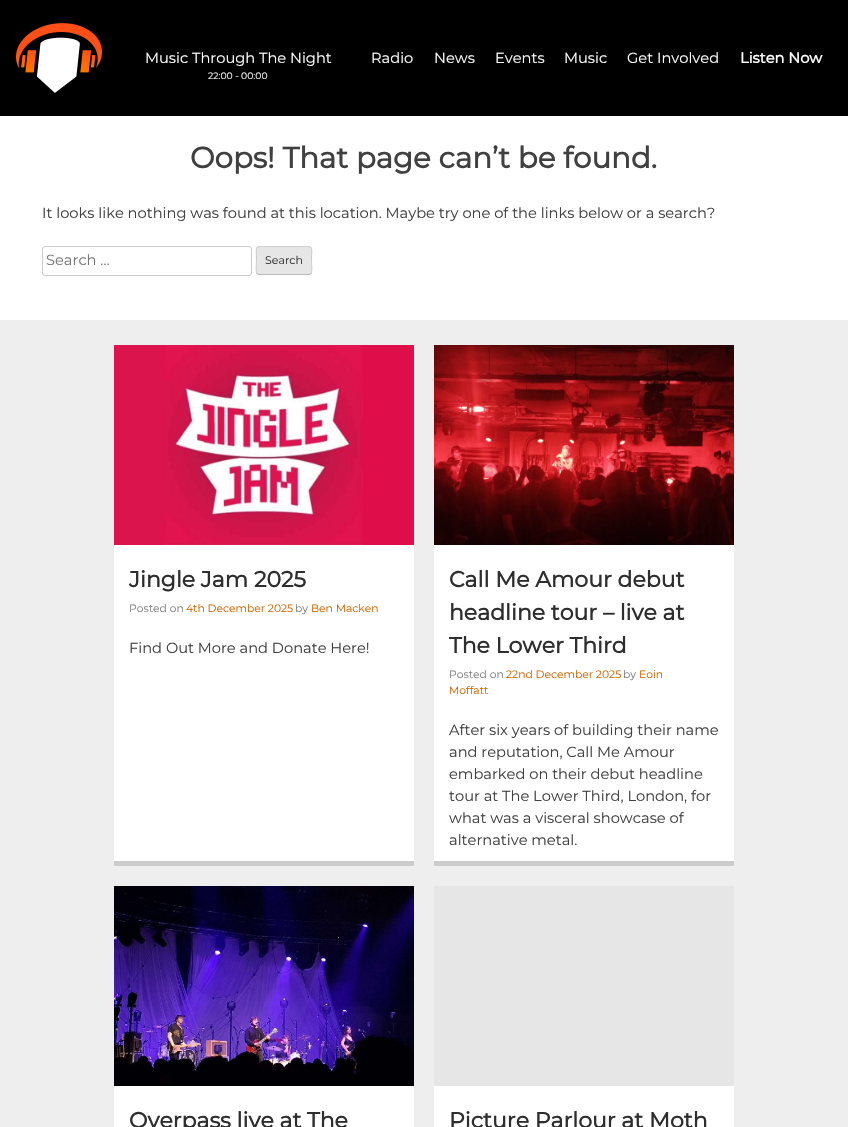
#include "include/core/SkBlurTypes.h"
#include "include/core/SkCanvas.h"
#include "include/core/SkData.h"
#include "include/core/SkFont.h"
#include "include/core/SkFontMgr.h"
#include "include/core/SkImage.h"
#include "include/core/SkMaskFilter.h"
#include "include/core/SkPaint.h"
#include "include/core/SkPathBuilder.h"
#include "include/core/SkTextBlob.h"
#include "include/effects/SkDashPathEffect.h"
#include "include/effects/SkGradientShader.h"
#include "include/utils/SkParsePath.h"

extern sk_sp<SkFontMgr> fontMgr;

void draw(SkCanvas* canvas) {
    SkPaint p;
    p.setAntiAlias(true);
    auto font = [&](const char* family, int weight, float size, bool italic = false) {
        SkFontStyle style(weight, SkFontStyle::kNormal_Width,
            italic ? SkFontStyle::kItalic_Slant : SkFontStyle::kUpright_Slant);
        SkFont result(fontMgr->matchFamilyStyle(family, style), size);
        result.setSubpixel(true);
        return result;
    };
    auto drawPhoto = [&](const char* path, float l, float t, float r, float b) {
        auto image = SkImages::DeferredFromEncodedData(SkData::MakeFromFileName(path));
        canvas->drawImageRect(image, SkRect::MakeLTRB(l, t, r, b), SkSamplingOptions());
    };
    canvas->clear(0xFFFFFFFF);
    p.setColor(0xFF000000);
    canvas->drawRect(SkRect::MakeLTRB(0, 0, 848, 116), p);
    drawPhoto("media/1.png", 16, 23, 102, 93);
    auto font1 = font("Montserrat", 400, 14.65f);
    p.setColor(0xFFFFFFFF);
    canvas->drawString("Music Through The Night", 145, 63, font1, p);
    auto font2 = font("Montserrat", 400, 9.25f);
    canvas->drawString("22:00 - 00:00", 208, 79, font2, p);
    {
        const struct { const char* s; float x, y; } items[] = {
            {"Radio", 371, 63},
            {"News", 434, 63},
            {"Events", 495, 63},
            {"Music", 564, 63},
            {"Get Involved", 627, 63},
        };
        for (auto [s, x, y] : items) {
            canvas->drawString(s, x, y, font1, p);
        }
    }
    auto font3 = font("Montserrat", 700, 14.65f);
    canvas->drawString("Listen Now", 740, 63, font3, p);
    auto font4 = font("Montserrat", 700, 29.3f);
    p.setColor(0xFF404040);
    canvas->drawString("Oops! That page can’t be found.", 190, 168, font4, p);
    canvas->drawString("It looks like nothing was found at this location. Maybe try one of the links below or a search?", 42, 218, font1, p);
    p.setStyle(SkPaint::kStroke_Style);
    p.setStrokeWidth(1);
    p.setColor(0xFFCCCCCC);
    canvas->drawRoundRect(SkRect::MakeLTRB(42.5f, 246.5f, 251.5f, 275.5f), 2.5f, 2.5f, p);
    p.setStyle(SkPaint::kFill_Style);
    p.setColor(0xFF757575);
    canvas->drawString("Search …", 46, 265, font1, p);
    p.setColor(0xFFE6E6E6);
    canvas->drawRoundRect(SkRect::MakeLTRB(256, 246, 312, 275), 3, 3, p);
    p.setStyle(SkPaint::kStroke_Style);
    p.setColor(0xFFBBBBBB);
    canvas->drawPath(SkPathBuilder().moveTo(311, 274).lineTo(309, 274.5f).lineTo(259, 274.5f).lineTo(257, 274).detach(), p);
    p.setColor(0xFFCCCCCC);
    canvas->drawPath(SkPathBuilder().moveTo(257, 274).cubicTo(255.5f, 272, 256.5f, 263, 256.5f, 260.5f).cubicTo(256.5f, 245.5f, 253.5f, 246.5f, 267.5f, 246.5f).lineTo(300.5f, 246.5f).cubicTo(314.5f, 246.5f, 311.5f, 245.5f, 311.5f, 260.5f).cubicTo(311.5f, 263, 312.5f, 272, 311, 274).detach(), p);
    auto font5 = font("Montserrat", 400, 11);
    p.setStyle(SkPaint::kFill_Style);
    p.setColor(0xFF2E2E2E);
    canvas->drawString("Search", 265, 264, font5, p);
    {
        const struct { float l, t, r, b; SkColor color; } items[] = {
            {0, 320, 848, 1127, 0xFFEEEEEE},
            {114, 545, 414, 861, 0xFFFFFFFF},
            {114, 861, 414, 866, 0xFFCCCCCC},
        };
        for (auto [l, t, r, b, color] : items) {
            p.setColor(color);
            canvas->drawRect(SkRect::MakeLTRB(l, t, r, b), p);
        }
    }
    drawPhoto("media/2.png", 114, 345, 414, 545);
    auto font6 = font("Montserrat", 700, 22);
    p.setColor(0xFF2E2E2E);
    canvas->drawString("Jingle Jam 2025", 129, 587, font6, p);
    auto font7 = font("Montserrat", 400, 10.75f);
    p.setColor(0xFF808080);
    canvas->drawString("Posted on", 129, 612, font7, p);
    p.setColor(0xFFCC6600);
    canvas->drawString("4th December 2025", 186, 612, font7, p);
    p.setColor(0xFF808080);
    canvas->drawString("by", 295, 612, font7, p);
    p.setColor(0xFFCC6600);
    canvas->drawString("Ben Macken", 311, 612, font7, p);
    p.setColor(0xFF404040);
    canvas->drawString("Find Out More and Donate Here!", 129, 653, font1, p);
    p.setColor(0xFFFFFFFF);
    canvas->drawRect(SkRect::MakeLTRB(434, 545, 734, 861), p);
    p.setColor(0xFFCCCCCC);
    canvas->drawRect(SkRect::MakeLTRB(434, 861, 734, 866), p);
    drawPhoto("media/3.png", 434, 345, 734, 545);
    p.setColor(0xFF2E2E2E);
    {
        const struct { const char* s; float x, y; } items[] = {
            {"Call Me Amour debut", 449, 587},
            {"headline tour – live at", 449, 620},
            {"The Lower Third", 449, 653},
        };
        for (auto [s, x, y] : items) {
            canvas->drawString(s, x, y, font6, p);
        }
    }
    p.setColor(0xFF808080);
    canvas->drawString("Posted on", 449, 678, font7, p);
    p.setColor(0xFFCC6600);
    canvas->drawString("22nd December 2025", 506, 678, font7, p);
    p.setColor(0xFF808080);
    canvas->drawString("by", 623, 678, font7, p);
    p.setColor(0xFFCC6600);
    canvas->drawString("Eoin", 639, 678, font7, p);
    canvas->drawString("Moffatt", 449, 694, font7, p);
    p.setColor(0xFF404040);
    {
        const struct { const char* s; float x, y; } items[] = {
            {"After six years of building their name", 449, 735},
            {"and reputation, Call Me Amour", 449, 757},
            {"embarked on their debut headline", 449, 779},
            {"tour at The Lower Third, London, for", 449, 801},
            {"what was a visceral showcase of", 449, 823},
            {"alternative metal.", 449, 845},
        };
        for (auto [s, x, y] : items) {
            canvas->drawString(s, x, y, font1, p);
        }
    }
    p.setColor(0xFFFFFFFF);
    canvas->drawRect(SkRect::MakeLTRB(114, 1086, 414, 1127), p);
    drawPhoto("media/4.png", 114, 886, 414, 1086);
    p.setColor(0xFF2E2E2E);
    canvas->drawString("Overpass live at The", 129, 1128, font6, p);
    p.setColor(0xFFFFFFFF);
    canvas->drawRect(SkRect::MakeLTRB(434, 1086, 734, 1127), p);
    p.setColor(0xFFE6E6E6);
    canvas->drawRect(SkRect::MakeLTRB(434, 886, 734, 1086), p);
    p.setColor(0xFF2E2E2E);
    canvas->drawString("Picture Parlour at Moth", 449, 1128, font6, p);
}
